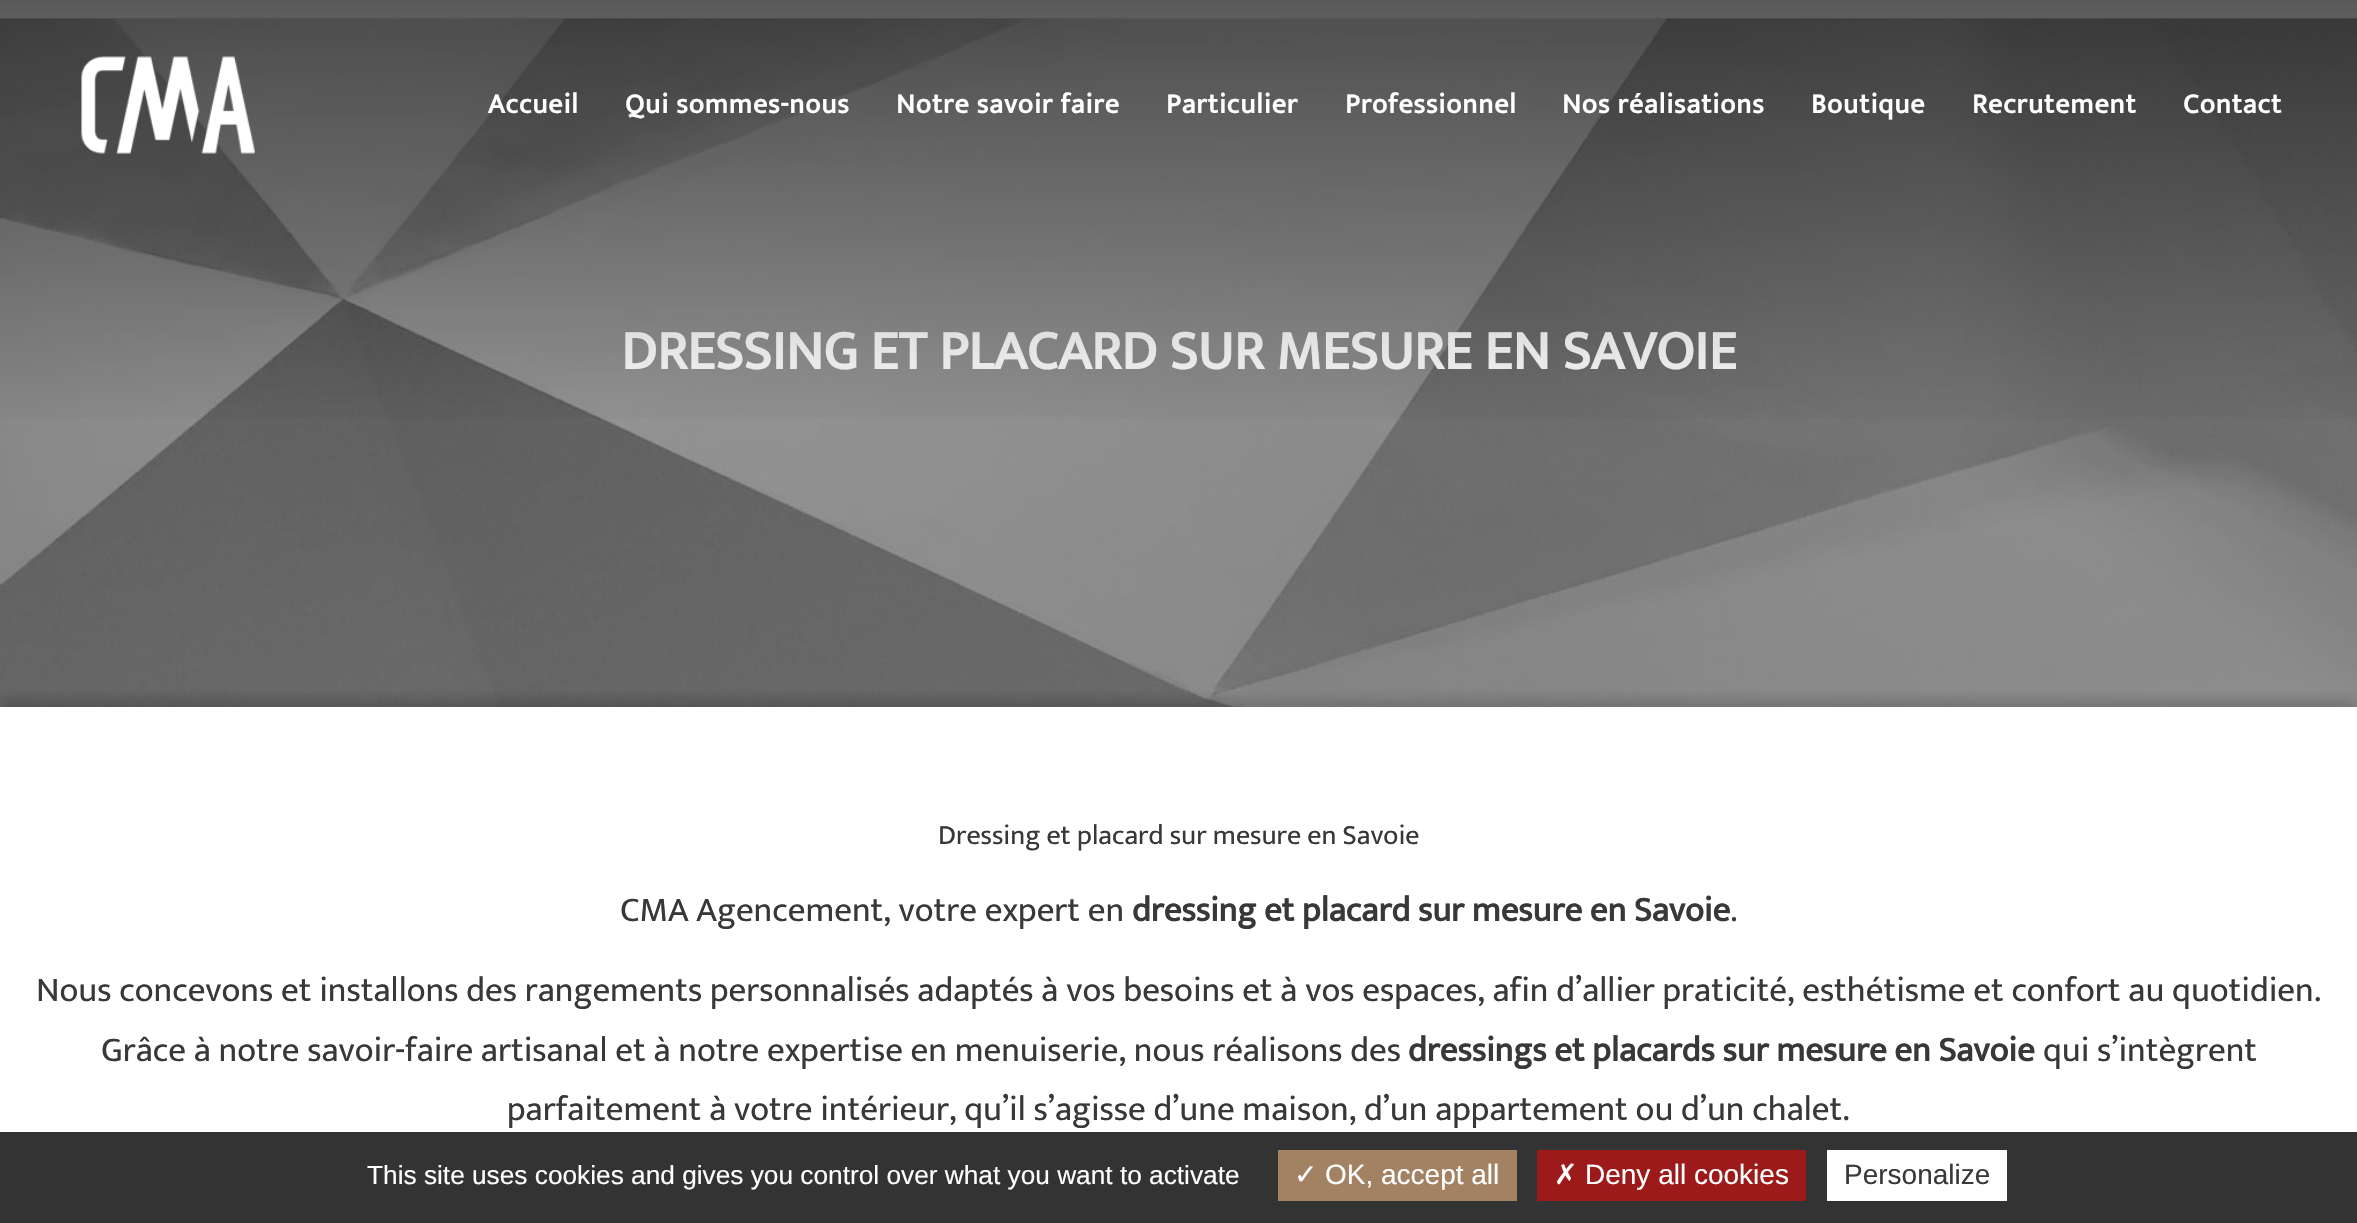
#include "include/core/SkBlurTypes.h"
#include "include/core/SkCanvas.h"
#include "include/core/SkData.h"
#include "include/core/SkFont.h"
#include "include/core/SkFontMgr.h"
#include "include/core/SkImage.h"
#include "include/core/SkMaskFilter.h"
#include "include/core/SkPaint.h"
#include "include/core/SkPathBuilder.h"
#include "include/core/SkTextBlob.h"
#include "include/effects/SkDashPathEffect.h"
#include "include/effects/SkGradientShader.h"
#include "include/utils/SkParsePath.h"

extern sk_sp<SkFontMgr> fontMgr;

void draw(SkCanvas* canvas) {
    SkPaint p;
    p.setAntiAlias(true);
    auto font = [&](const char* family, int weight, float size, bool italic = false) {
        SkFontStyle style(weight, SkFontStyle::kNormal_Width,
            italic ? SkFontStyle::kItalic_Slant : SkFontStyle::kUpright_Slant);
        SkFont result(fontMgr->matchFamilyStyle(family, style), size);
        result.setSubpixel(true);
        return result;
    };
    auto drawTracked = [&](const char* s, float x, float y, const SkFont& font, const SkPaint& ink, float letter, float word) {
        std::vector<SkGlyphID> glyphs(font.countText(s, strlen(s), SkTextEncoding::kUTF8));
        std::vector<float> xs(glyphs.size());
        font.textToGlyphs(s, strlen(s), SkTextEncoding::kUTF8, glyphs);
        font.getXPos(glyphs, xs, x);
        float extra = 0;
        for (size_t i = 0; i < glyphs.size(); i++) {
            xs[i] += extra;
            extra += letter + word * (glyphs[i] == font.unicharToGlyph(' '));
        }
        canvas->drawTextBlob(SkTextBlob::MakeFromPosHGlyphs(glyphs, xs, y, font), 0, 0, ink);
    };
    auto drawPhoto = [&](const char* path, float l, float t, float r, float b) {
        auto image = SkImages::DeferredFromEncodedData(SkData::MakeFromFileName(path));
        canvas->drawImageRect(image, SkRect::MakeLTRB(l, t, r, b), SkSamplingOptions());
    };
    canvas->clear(0xFFFFFFFF);
    p.setColor(0xFFB3B3B3);
    canvas->drawRect(SkRect::MakeLTRB(0, 0, 2357, 19), p);
    drawPhoto("media/2.png", 0, 18, 2357, 707);
    auto font1 = font("Mukta", 700, 56);
    p.setColor(0xFFFFFFFF);
    canvas->drawString("DRESSING ET PLACARD SUR MESURE EN SAVOIE", 621, 369, font1, p);
    {
        const SkColor colors[] = {0x80000000, 0x00000000};
        const float stops[] = {0, 1};
        const SkPoint ends[] = {{1179, 0}, {1179, 438}};
        p.setShader(SkGradientShader::MakeLinear(ends, colors, stops, 2, SkTileMode::kClamp));
        p.setAlpha(255);
    }
    canvas->drawRect(SkRect::MakeLTRB(0, 0, 2357, 419), p);
    drawPhoto("media/1.png", 81, 56, 255, 154);
    auto font2 = font("Mukta", 700, 28);
    p.setShader(nullptr);
    p.setColor(0xFFFFFFFF);
    {
        const struct { const char* s; float x, y; } items[] = {
            {"Accueil", 488, 113},
            {"Qui sommes-nous", 625, 113},
            {"Notre savoir faire", 896, 113},
            {"Particulier", 1166, 113},
            {"Professionnel", 1345, 113},
            {"Nos réalisations", 1562, 113},
            {"Boutique", 1811, 113},
            {"Recrutement", 1972, 113},
            {"Contact", 2183, 113},
        };
        for (auto [s, x, y] : items) {
            drawTracked(s, x, y, font2, p, 1, 0);
        }
    }
    canvas->save();
    canvas->clipRect(SkRect::MakeLTRB(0, 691, 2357, 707));
    p.setColor(0x33000000);
    p.setMaskFilter(SkMaskFilter::MakeBlur(kNormal_SkBlurStyle, 7));
    canvas->drawRect(SkRect::MakeLTRB(0, 700, 2357, 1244), p);
    p.setMaskFilter(nullptr);
    canvas->restore();
    auto font3 = font("Mukta", 400, 28);
    p.setColor(0xFF383838);
    canvas->drawString("Dressing et placard sur mesure en Savoie", 938, 844, font3, p);
    auto font4 = font("Mukta", 400, 35);
    canvas->drawString("CMA Agencement, votre expert en", 620, 921, font4, p);
    auto font5 = font("Mukta", 700, 35);
    canvas->drawString("dressing et placard sur mesure en Savoie", 1132, 921, font5, p);
    {
        const struct { const char* s; float x, y; } items[] = {
            {".", 1730, 921},
            {"Nous concevons et installons des rangements personnalisés adaptés à vos besoins et à vos espaces, afin d’allier praticité, esthétisme et confort au quotidien.", 36, 1001},
            {"Grâce à notre savoir-faire artisanal et à notre expertise en menuiserie, nous réalisons des", 101, 1061},
        };
        for (auto [s, x, y] : items) {
            canvas->drawString(s, x, y, font4, p);
        }
    }
    canvas->drawString("dressings et placards sur mesure en Savoie", 1408, 1061, font5, p);
    canvas->drawString("qui s’intègrent", 2043, 1061, font4, p);
    canvas->drawString("parfaitement à votre intérieur, qu’il s’agisse d’une maison, d’un appartement ou d’un chalet.", 507, 1120, font4, p);
    p.setColor(0xFF333333);
    canvas->drawRect(SkRect::MakeLTRB(0, 1132, 2357, 1223), p);
    auto font6 = font("Liberation Sans", 400, 26.25f);
    p.setColor(0xFFFFFFFF);
    canvas->drawString("This site uses cookies and gives you control over what you want to activate", 367, 1184, font6, p);
    p.setColor(0xFFA38263);
    canvas->drawRect(SkRect::MakeLTRB(1278, 1150, 1517, 1201), p);
    auto font7 = font("DejaVu Sans", 400, 28);
    p.setColor(0xFFFFFFFF);
    canvas->drawString("✓", 1294, 1184, font7, p);
    auto font8 = font("Liberation Sans", 400, 28);
    canvas->drawString("OK, accept all", 1325, 1184, font8, p);
    p.setColor(0xFF9C1A1A);
    canvas->drawRect(SkRect::MakeLTRB(1537, 1150, 1806, 1201), p);
    p.setColor(0xFFFFFFFF);
    canvas->drawString("✗", 1554, 1184, font7, p);
    canvas->drawString("Deny all cookies", 1585, 1184, font8, p);
    canvas->drawRect(SkRect::MakeLTRB(1827, 1150, 2007, 1201), p);
    p.setColor(0xFF383838);
    canvas->drawString("Personalize", 1844, 1184, font8, p);
}
